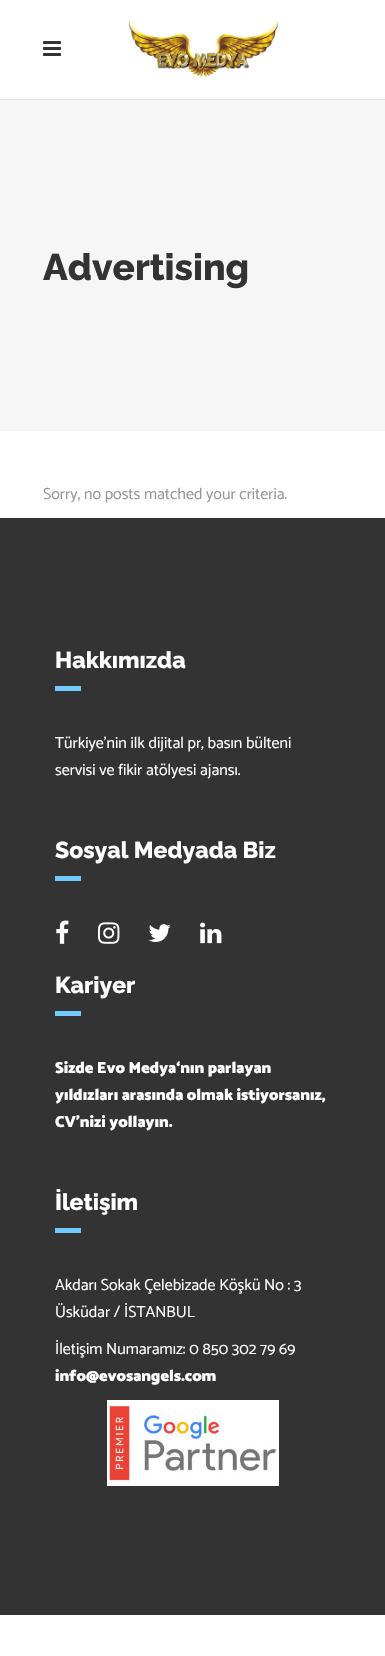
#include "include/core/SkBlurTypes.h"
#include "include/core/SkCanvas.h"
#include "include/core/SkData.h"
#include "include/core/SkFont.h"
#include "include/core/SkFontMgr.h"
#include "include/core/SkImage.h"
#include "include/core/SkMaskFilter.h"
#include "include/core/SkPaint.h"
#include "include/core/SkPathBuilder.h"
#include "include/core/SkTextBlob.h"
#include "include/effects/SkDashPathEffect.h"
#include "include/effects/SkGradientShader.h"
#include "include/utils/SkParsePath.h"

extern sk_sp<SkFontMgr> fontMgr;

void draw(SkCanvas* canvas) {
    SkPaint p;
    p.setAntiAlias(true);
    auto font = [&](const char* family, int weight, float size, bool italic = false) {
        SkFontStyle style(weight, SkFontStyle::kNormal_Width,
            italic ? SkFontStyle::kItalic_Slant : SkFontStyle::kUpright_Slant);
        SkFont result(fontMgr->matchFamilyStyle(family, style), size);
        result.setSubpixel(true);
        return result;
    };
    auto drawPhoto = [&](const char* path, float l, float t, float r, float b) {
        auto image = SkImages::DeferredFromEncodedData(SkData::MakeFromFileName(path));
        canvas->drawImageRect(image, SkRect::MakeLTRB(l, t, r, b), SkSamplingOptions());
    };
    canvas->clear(0xFFFFFFFF);
    p.setColor(0xFFE1E1E1);
    canvas->drawRect(SkRect::MakeLTRB(0, 99, 385, 100), p);
    drawPhoto("media/1.png", 43, 41, 61, 56);
    drawPhoto("media/2.png", 128, 20, 279, 77);
    p.setColor(0xFFF6F6F6);
    canvas->drawRect(SkRect::MakeLTRB(0, 100, 385, 431), p);
    auto font1 = font("Raleway", 800, 37);
    p.setColor(0xFF333333);
    canvas->drawString("Advertising", 43, 280, font1, p);
    auto font2 = font("Catamaran", 400, 16);
    p.setColor(0xFF969696);
    canvas->drawString("Sorry, no posts matched your criteria.", 43, 499, font2, p);
    p.setColor(0xFF333333);
    canvas->drawRect(SkRect::MakeLTRB(0, 518, 385, 1615), p);
    auto font3 = font("Raleway", 800, 23);
    p.setColor(0xFFFFFFFF);
    canvas->drawString("Hakkımızda", 55, 668, font3, p);
    p.setColor(0xFF71CBFE);
    canvas->drawRect(SkRect::MakeLTRB(55, 686, 81, 691), p);
    p.setColor(0xFFFFFFFF);
    canvas->drawString("Türkiye'nin ilk dijital pr, basın bülteni", 55, 748, font2, p);
    canvas->drawString("servisi ve fikir atölyesi ajansı.", 55, 775, font2, p);
    canvas->drawString("Sosyal Medyada Biz", 55, 858, font3, p);
    p.setColor(0xFF71CBFE);
    canvas->drawRect(SkRect::MakeLTRB(55, 876, 81, 881), p);
    drawPhoto("media/3.png", 56, 920, 69, 944);
    drawPhoto("media/4.png", 98, 922, 120, 944);
    drawPhoto("media/5.png", 148, 924, 171, 942);
    drawPhoto("media/6.png", 200, 922, 222, 944);
    p.setColor(0xFFFFFFFF);
    canvas->drawString("Kariyer", 55, 993, font3, p);
    p.setColor(0xFF71CBFE);
    canvas->drawRect(SkRect::MakeLTRB(55, 1011, 81, 1016), p);
    auto font4 = font("Catamaran", 900, 16);
    p.setColor(0xFFFFFFFF);
    {
        const struct { const char* s; float x, y; } items[] = {
            {"Sizde Evo Medya‘nın parlayan", 55, 1073},
            {"yıldızları arasında olmak istiyorsanız,", 55, 1100},
            {"CV’nizi yollayın.", 55, 1127},
        };
        for (auto [s, x, y] : items) {
            canvas->drawString(s, x, y, font4, p);
        }
    }
    canvas->drawString("İletişim", 55, 1210, font3, p);
    p.setColor(0xFF71CBFE);
    canvas->drawRect(SkRect::MakeLTRB(55, 1228, 81, 1233), p);
    p.setColor(0xFFFFFFFF);
    {
        const struct { const char* s; float x, y; } items[] = {
            {"Akdarı Sokak Çelebizade Köşkü No : 3", 55, 1290},
            {"Üsküdar / İSTANBUL", 55, 1317},
            {"İletişim Numaramız: 0 850 302 79 69", 55, 1354},
        };
        for (auto [s, x, y] : items) {
            canvas->drawString(s, x, y, font2, p);
        }
    }
    canvas->drawString("info@evosangels.com", 55, 1381, font4, p);
    drawPhoto("media/7.png", 107, 1400, 279, 1486);
}
